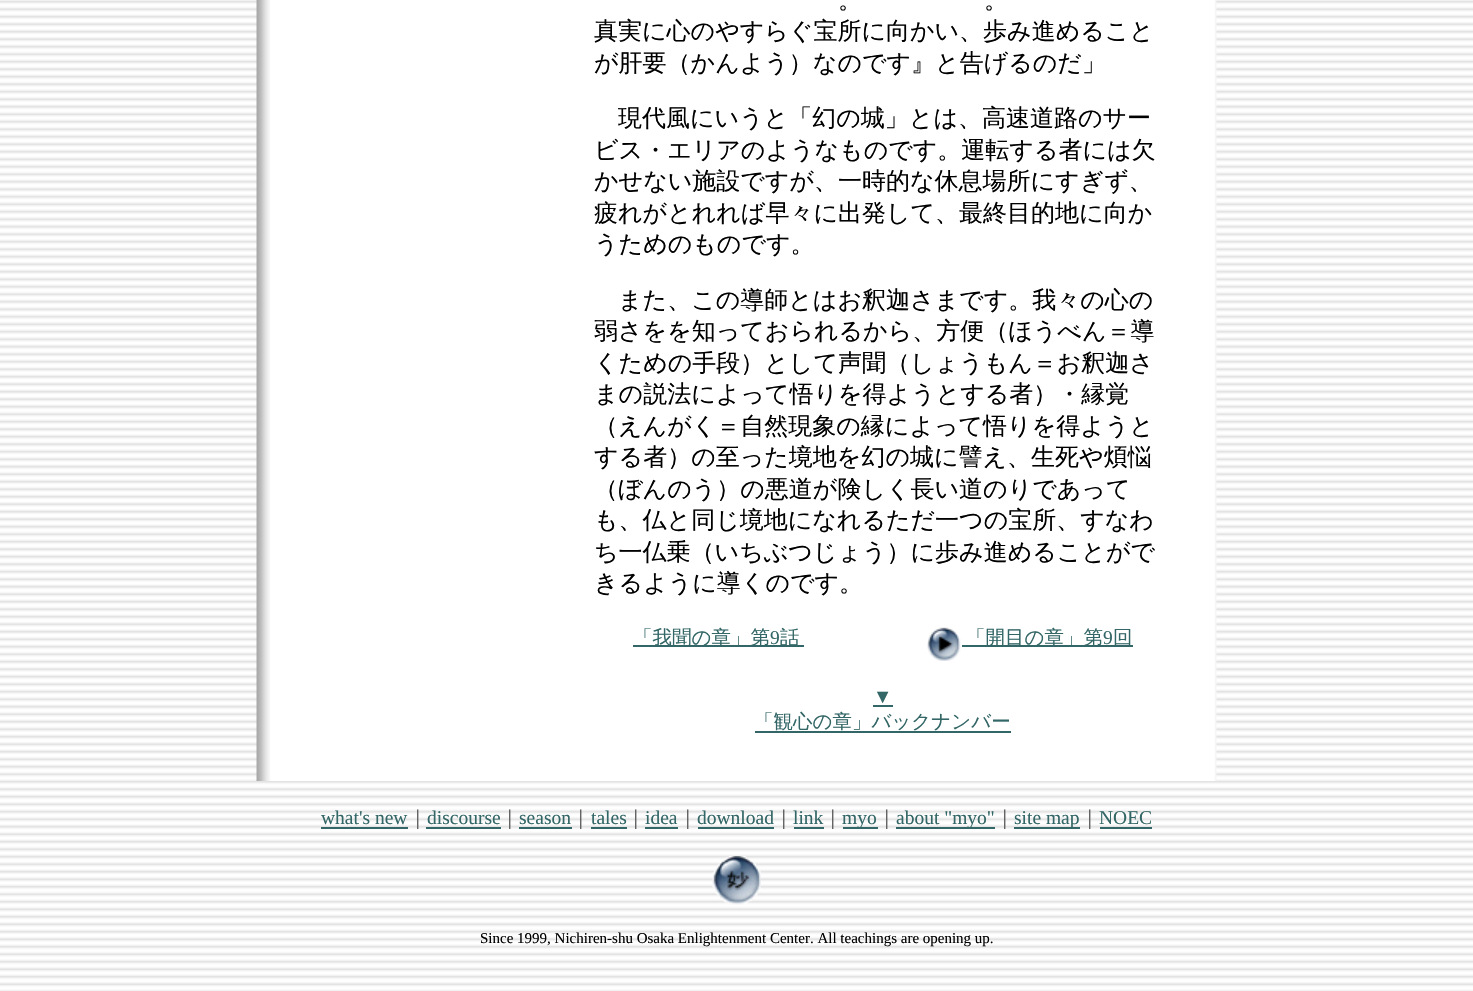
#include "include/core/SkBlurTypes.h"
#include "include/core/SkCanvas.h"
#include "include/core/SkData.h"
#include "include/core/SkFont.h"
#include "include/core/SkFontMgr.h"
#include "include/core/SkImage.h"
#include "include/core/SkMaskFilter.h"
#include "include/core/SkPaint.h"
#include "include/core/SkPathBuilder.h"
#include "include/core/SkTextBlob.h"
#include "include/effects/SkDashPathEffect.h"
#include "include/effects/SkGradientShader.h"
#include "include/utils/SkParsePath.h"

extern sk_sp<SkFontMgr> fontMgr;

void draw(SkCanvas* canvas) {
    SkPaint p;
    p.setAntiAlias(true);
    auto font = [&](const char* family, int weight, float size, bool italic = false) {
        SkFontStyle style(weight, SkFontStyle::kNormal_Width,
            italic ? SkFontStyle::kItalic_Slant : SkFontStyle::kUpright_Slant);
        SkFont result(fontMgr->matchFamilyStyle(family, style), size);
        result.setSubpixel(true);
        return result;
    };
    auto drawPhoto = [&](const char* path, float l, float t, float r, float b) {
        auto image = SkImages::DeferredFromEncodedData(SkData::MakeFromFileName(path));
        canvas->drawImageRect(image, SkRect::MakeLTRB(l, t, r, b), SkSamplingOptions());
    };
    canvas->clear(0xFFFFFFFF);
    drawPhoto("media/1.png", 0, 0, 1473, 991);
    drawPhoto("media/2.png", 256, 0, 1217, 781);
    auto font1 = font("WenQuanYi Zen Hei", 500, 24);
    p.setColor(0xFF000000);
    {
        const struct { const char* s; float x, y; } items[] = {
            {"。", 838, 8},
            {"。", 984, 8},
            {"真実に心のやすらぐ宝所に向かい、歩み進めること", 594, 39},
            {"が肝要（かんよう）なのです』と告げるのだ」", 594, 71},
            {"現代風にいうと「幻の城」とは、高速道路のサー", 618, 126},
            {"ビス・エリアのようなものです。運転する者には欠", 594, 158},
            {"かせない施設ですが、一時的な休息場所にすぎず、", 594, 189},
            {"疲れがとれれば早々に出発して、最終目的地に向か", 594, 221},
            {"うためのものです。", 594, 252},
            {"また、この導師とはお釈迦さまです。我々の心の", 618, 308},
            {"弱さをを知っておられるから、方便（ほうべん＝導", 594, 339},
            {"くための手段）として声聞（しょうもん＝お釈迦さ", 594, 371},
            {"まの説法によって悟りを得ようとする者）・縁覚", 594, 402},
            {"（えんがく＝自然現象の縁によって悟りを得ようと", 594, 434},
            {"する者）の至った境地を幻の城に譬え、生死や煩悩", 594, 465},
            {"（ぼんのう）の悪道が険しく長い道のりであって", 594, 497},
            {"も、仏と同じ境地になれるただ一つの宝所、すなわ", 594, 528},
            {"ち一仏乗（いちぶつじょう）に歩み進めることがで", 594, 560},
            {"きるように導くのです。", 594, 591},
        };
        for (auto [s, x, y] : items) {
            canvas->drawString(s, x, y, font1, p);
        }
    }
    p.setColor(0xFF336666);
    canvas->drawRect(SkRect::MakeLTRB(633, 645, 804, 647), p);
    auto font2 = font("WenQuanYi Zen Hei", 500, 19.5f);
    canvas->drawString("「我聞の章」第", 633, 644, font2, p);
    auto font3 = font("Liberation Serif", 400, 19.5f);
    canvas->drawString("9", 770, 644, font3, p);
    canvas->drawString("話", 780, 644, font2, p);
    drawPhoto("media/3.png", 927, 627, 961, 661);
    canvas->drawRect(SkRect::MakeLTRB(962, 645, 1133, 647), p);
    canvas->drawString("「開目の章」第", 966, 644, font2, p);
    canvas->drawString("9", 1103, 644, font3, p);
    canvas->drawString("回", 1113, 644, font2, p);
    canvas->drawString("▼", 873, 703, font3, p);
    canvas->drawRect(SkRect::MakeLTRB(873, 705, 893, 707), p);
    canvas->drawString("「観心の章」バックナンバー", 754, 728, font2, p);
    canvas->drawRect(SkRect::MakeLTRB(755, 731, 1011, 733), p);
    canvas->drawString("what's new", 321, 824, font3, p);
    canvas->drawRect(SkRect::MakeLTRB(321, 827, 408, 829), p);
    p.setColor(0xFF555555);
    canvas->drawString("｜", 408, 824, font2, p);
    p.setColor(0xFF336666);
    canvas->drawString("discourse", 427, 824, font3, p);
    canvas->drawRect(SkRect::MakeLTRB(426, 827, 501, 829), p);
    p.setColor(0xFF555555);
    canvas->drawString("｜", 500, 824, font2, p);
    p.setColor(0xFF336666);
    canvas->drawString("season", 519, 824, font3, p);
    canvas->drawRect(SkRect::MakeLTRB(519, 827, 572, 829), p);
    p.setColor(0xFF555555);
    canvas->drawString("｜", 571, 824, font2, p);
    p.setColor(0xFF336666);
    canvas->drawString("tales", 591, 824, font3, p);
    canvas->drawRect(SkRect::MakeLTRB(591, 827, 627, 829), p);
    p.setColor(0xFF555555);
    canvas->drawString("｜", 626, 824, font2, p);
    p.setColor(0xFF336666);
    canvas->drawString("idea", 645, 824, font3, p);
    canvas->drawRect(SkRect::MakeLTRB(645, 827, 678, 829), p);
    p.setColor(0xFF555555);
    canvas->drawString("｜", 678, 824, font2, p);
    p.setColor(0xFF336666);
    canvas->drawString("download", 697, 824, font3, p);
    canvas->drawRect(SkRect::MakeLTRB(698, 827, 774, 829), p);
    p.setColor(0xFF555555);
    canvas->drawString("｜", 774, 824, font2, p);
    p.setColor(0xFF336666);
    canvas->drawString("link", 793, 824, font3, p);
    canvas->drawRect(SkRect::MakeLTRB(794, 827, 824, 829), p);
    p.setColor(0xFF555555);
    canvas->drawString("｜", 823, 824, font2, p);
    p.setColor(0xFF336666);
    canvas->drawRect(SkRect::MakeLTRB(843, 827, 878, 829), p);
    canvas->drawString("myo", 842, 824, font3, p);
    p.setColor(0xFF555555);
    canvas->drawString("｜", 877, 824, font2, p);
    p.setColor(0xFF336666);
    canvas->drawRect(SkRect::MakeLTRB(896, 827, 995, 829), p);
    canvas->drawString("about \"myo\"", 896, 824, font3, p);
    p.setColor(0xFF555555);
    canvas->drawString("｜", 995, 824, font2, p);
    p.setColor(0xFF336666);
    canvas->drawRect(SkRect::MakeLTRB(1014, 827, 1080, 829), p);
    canvas->drawString("site map", 1014, 824, font3, p);
    p.setColor(0xFF555555);
    canvas->drawString("｜", 1080, 824, font2, p);
    p.setColor(0xFF336666);
    canvas->drawString("NOEC", 1099, 824, font3, p);
    canvas->drawRect(SkRect::MakeLTRB(1100, 827, 1152, 829), p);
    drawPhoto("media/4.png", 712, 856, 761, 905);
    auto font4 = font("Liberation Serif", 400, 15);
    p.setColor(0xFF000000);
    canvas->drawString("Since 1999, Nichiren-shu Osaka Enlightenment Center. All teachings are opening up.", 480, 943, font4, p);
}
